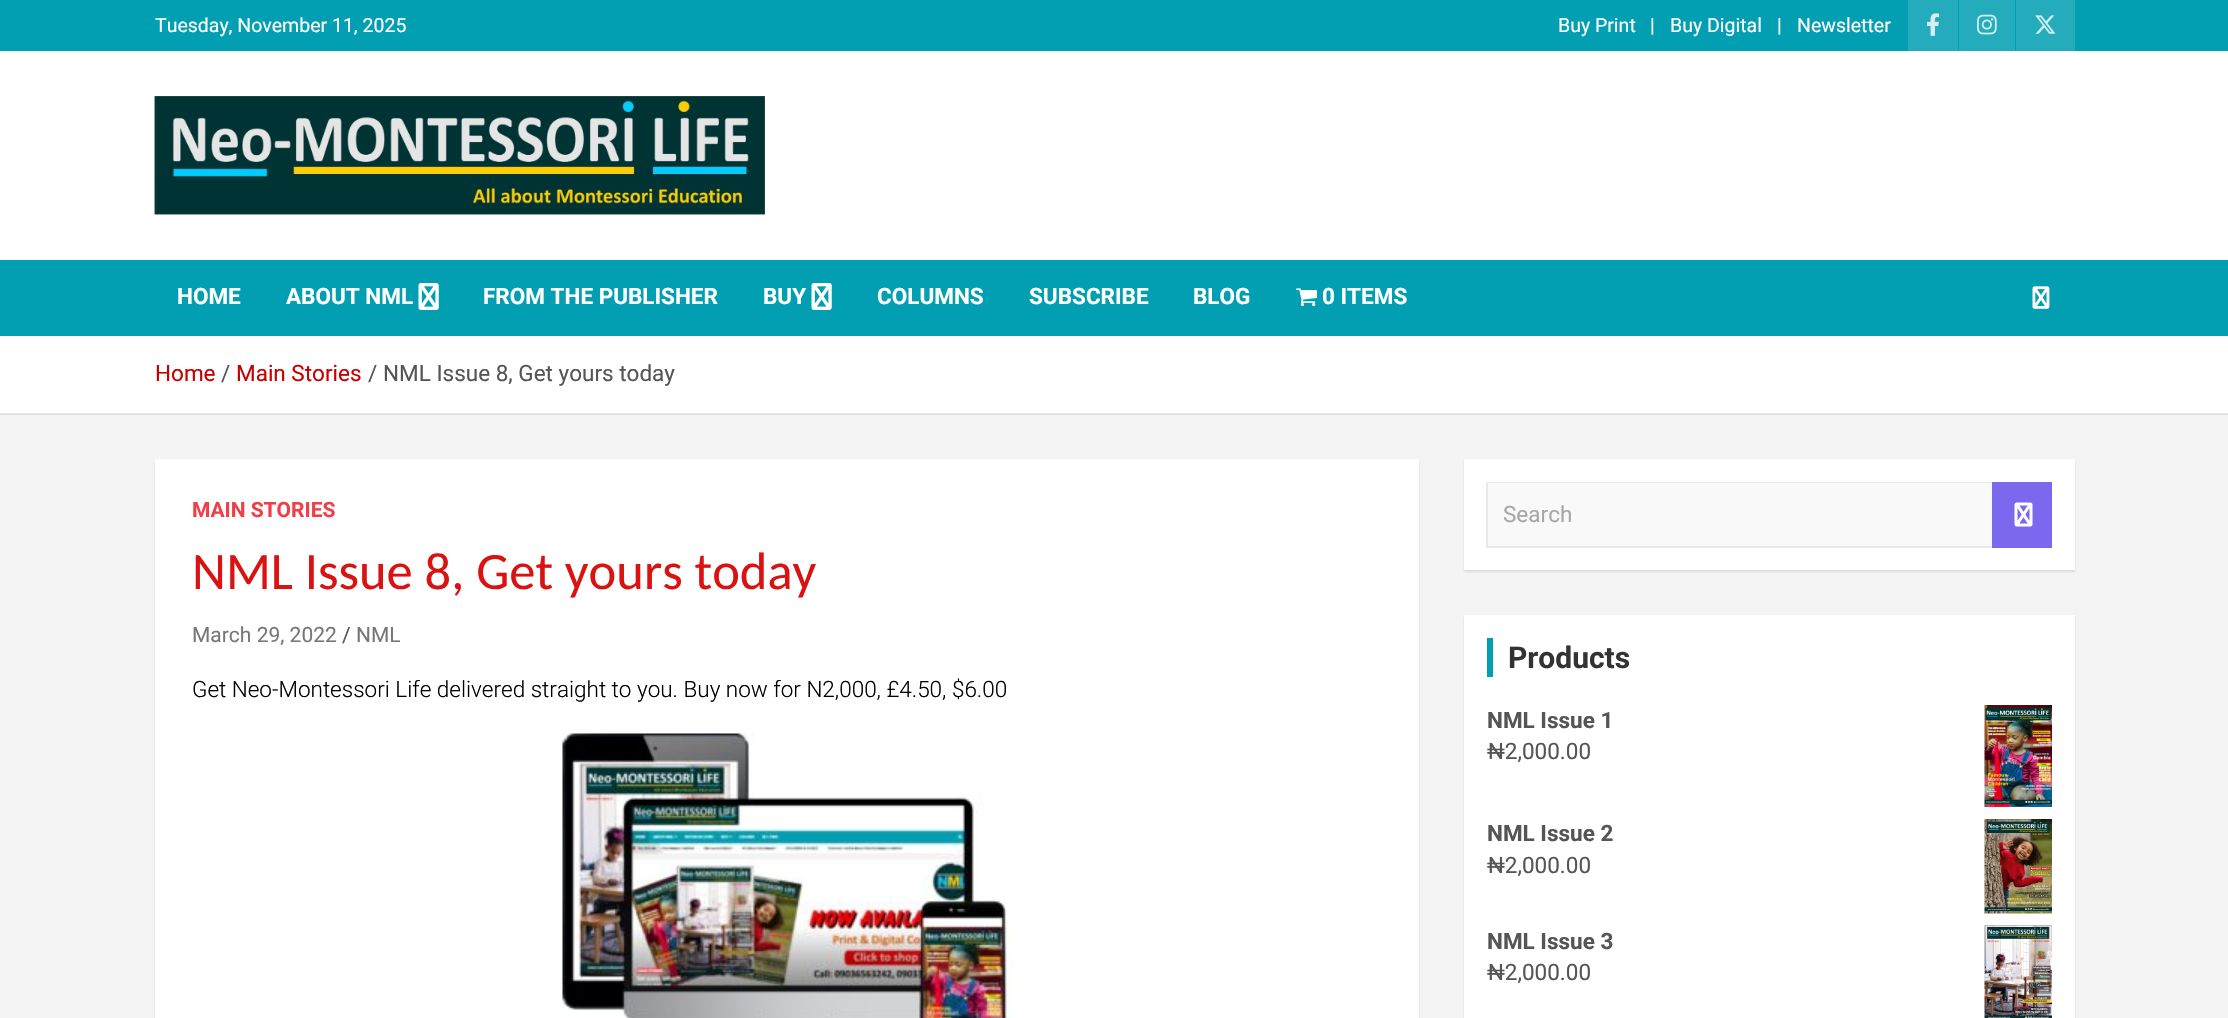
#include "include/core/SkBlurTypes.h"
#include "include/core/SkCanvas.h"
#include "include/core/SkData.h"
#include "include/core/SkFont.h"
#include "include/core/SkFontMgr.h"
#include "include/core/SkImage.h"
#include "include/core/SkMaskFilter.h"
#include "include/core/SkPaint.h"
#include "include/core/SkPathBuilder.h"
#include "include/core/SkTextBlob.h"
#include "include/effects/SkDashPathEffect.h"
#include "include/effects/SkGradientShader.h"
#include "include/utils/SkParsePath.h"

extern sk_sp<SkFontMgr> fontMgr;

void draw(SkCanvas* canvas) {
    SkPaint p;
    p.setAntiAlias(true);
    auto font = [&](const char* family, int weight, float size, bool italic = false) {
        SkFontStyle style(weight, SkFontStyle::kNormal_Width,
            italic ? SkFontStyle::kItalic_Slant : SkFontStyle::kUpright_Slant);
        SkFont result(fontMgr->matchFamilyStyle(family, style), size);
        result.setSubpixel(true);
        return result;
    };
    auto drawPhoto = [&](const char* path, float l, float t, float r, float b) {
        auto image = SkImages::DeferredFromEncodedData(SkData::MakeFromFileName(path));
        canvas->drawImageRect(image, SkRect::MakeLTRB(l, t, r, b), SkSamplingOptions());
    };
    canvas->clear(0xFFF4F4F4);
    p.setColor(0xFFDCDCDC);
    canvas->drawRect(SkRect::MakeLTRB(0, 414, 2228, 415), p);
    p.setColor(0xFF029FB2);
    canvas->drawRect(SkRect::MakeLTRB(0, 0, 2228, 51), p);
    auto font1 = font("Roboto", 400, 19.5f);
    p.setColor(0xFFFFFFFF);
    {
        const struct { const char* s; float x, y; } items[] = {
            {"Tuesday, November 11, 2025", 155, 32},
            {"Buy Print", 1558, 32},
            {"|", 1650, 32},
            {"Buy Digital", 1670, 32},
            {"|", 1777, 32},
            {"Newsletter", 1797, 32},
        };
        for (auto [s, x, y] : items) {
            canvas->drawString(s, x, y, font1, p);
        }
    }
    p.setColor(0xFF24ACBD);
    canvas->drawRect(SkRect::MakeLTRB(1908, 0, 1958, 51), p);
    drawPhoto("media/1.png", 1927, 13, 1940, 36);
    canvas->drawRect(SkRect::MakeLTRB(1959, 0, 2015, 51), p);
    drawPhoto("media/2.png", 1977, 14, 1997, 35);
    canvas->drawRect(SkRect::MakeLTRB(2016, 0, 2075, 51), p);
    drawPhoto("media/3.png", 2035, 15, 2056, 34);
    p.setColor(0xFFFFFFFF);
    canvas->drawRect(SkRect::MakeLTRB(0, 51, 2228, 260), p);
    drawPhoto("media/4.png", 154, 96, 765, 215);
    p.setColor(0xFF029FB2);
    canvas->drawRect(SkRect::MakeLTRB(0, 260, 2228, 336), p);
    auto font2 = font("Roboto", 700, 22.5f);
    p.setColor(0xFFFFFFFF);
    canvas->drawString("HOME", 177, 304, font2, p);
    canvas->drawString("ABOUT NML", 286, 304, font2, p);
    drawPhoto("media/5.png", 418, 283, 439, 310);
    canvas->drawString("FROM THE PUBLISHER", 483, 304, font2, p);
    canvas->drawString("BUY", 763, 304, font2, p);
    drawPhoto("media/5.png", 811, 283, 832, 310);
    {
        const struct { const char* s; float x, y; } items[] = {
            {"COLUMNS", 877, 304},
            {"SUBSCRIBE", 1029, 304},
            {"BLOG", 1193, 304},
        };
        for (auto [s, x, y] : items) {
            canvas->drawString(s, x, y, font2, p);
        }
    }
    drawPhoto("media/6.png", 1296, 288, 1317, 307);
    canvas->drawString("0 ITEMS", 1322, 304, font2, p);
    drawPhoto("media/7.png", 2032, 286, 2050, 309);
    canvas->drawRect(SkRect::MakeLTRB(0, 336, 2228, 413), p);
    p.setColor(0xFFE6E6E6);
    canvas->drawRect(SkRect::MakeLTRB(0, 413, 2228, 414), p);
    auto font3 = font("Roboto", 400, 22.5f);
    p.setColor(0xFFC80000);
    canvas->drawString("Home", 155, 381, font3, p);
    p.setColor(0xFF555555);
    canvas->drawString("/", 221, 381, font3, p);
    p.setColor(0xFFC80000);
    canvas->drawString("Main Stories", 236, 381, font3, p);
    p.setColor(0xFF555555);
    canvas->drawString("/", 368, 381, font3, p);
    canvas->drawString("NML Issue 8, Get yours today", 383, 381, font3, p);
    p.setColor(0x1A000000);
    p.setMaskFilter(SkMaskFilter::MakeBlur(kNormal_SkBlurStyle, 1));
    canvas->drawRect(SkRect::MakeLTRB(155, 461, 1419, 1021), p);
    p.setMaskFilter(nullptr);
    p.setColor(0xFFFFFFFF);
    canvas->drawRect(SkRect::MakeLTRB(155, 459, 1419, 1018), p);
    auto font4 = font("Roboto", 700, 21);
    p.setColor(0xFFEF3F49);
    canvas->drawString("MAIN STORIES", 192, 517, font4, p);
    auto font5 = font("Carlito", 400, 52.5f);
    p.setColor(0xFFDB1212);
    canvas->drawString("NML Issue 8, Get yours today", 192, 589, font5, p);
    auto font6 = font("Roboto", 400, 21);
    p.setColor(0xFF777777);
    canvas->drawString("March 29, 2022", 192, 642, font6, p);
    p.setColor(0xFF555555);
    canvas->drawString("/", 342, 642, font6, p);
    p.setColor(0xFF777777);
    canvas->drawString("NML", 356, 642, font6, p);
    auto font7 = font("Roboto", 300, 22.5f);
    p.setColor(0xFF000000);
    canvas->drawString("Get Neo-Montessori Life delivered straight to you. Buy now for N2,000, £4.50, $6.00", 192, 697, font7, p);
    drawPhoto("media/8.png", 562, 733, 1013, 1018);
    p.setColor(0x1A000000);
    p.setMaskFilter(SkMaskFilter::MakeBlur(kNormal_SkBlurStyle, 1));
    canvas->drawRect(SkRect::MakeLTRB(1464, 461, 2075, 572), p);
    p.setMaskFilter(nullptr);
    p.setColor(0xFFFFFFFF);
    canvas->drawRect(SkRect::MakeLTRB(1464, 459, 2075, 570), p);
    p.setColor(0xFFF9F9F9);
    canvas->drawRect(SkRect::MakeLTRB(1488, 483, 1992, 546), p);
    p.setColor(0xFFE8E8E8);
    canvas->drawPath(SkPathBuilder().moveTo(1486, 482).lineTo(1992, 482).lineTo(1992, 483).lineTo(1488, 483).close().detach(), p);
    canvas->drawPath(SkPathBuilder().moveTo(1992, 548).lineTo(1486, 548).lineTo(1488, 546).lineTo(1992, 546).close().detach(), p);
    p.setColor(0x17000000);
    canvas->drawPath(SkPathBuilder().moveTo(1486, 548).lineTo(1486, 482).lineTo(1488, 483).lineTo(1488, 546).close().detach(), p);
    p.setColor(0xFFA7A7A7);
    canvas->drawString("Search", 1503, 522, font3, p);
    p.setColor(0xFF7B68EE);
    canvas->drawRect(SkRect::MakeLTRB(1992, 482, 2052, 548), p);
    drawPhoto("media/9.png", 2014, 502, 2033, 527);
    p.setColor(0x1A000000);
    p.setMaskFilter(SkMaskFilter::MakeBlur(kNormal_SkBlurStyle, 1));
    canvas->drawRect(SkRect::MakeLTRB(1464, 617, 2075, 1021), p);
    p.setMaskFilter(nullptr);
    p.setColor(0xFFFFFFFF);
    canvas->drawRect(SkRect::MakeLTRB(1464, 615, 2075, 1018), p);
    p.setColor(0xFF029FB2);
    canvas->drawRect(SkRect::MakeLTRB(1487, 638, 1493, 677), p);
    auto font8 = font("Roboto", 700, 30);
    p.setColor(0xFF333333);
    canvas->drawString("Products", 1508, 668, font8, p);
    p.setColor(0xFF555555);
    canvas->drawString("NML Issue 1", 1487, 728, font2, p);
    drawPhoto("media/10.png", 1984, 705, 2052, 807);
    canvas->drawString("₦2,000.00", 1487, 759, font3, p);
    canvas->drawString("NML Issue 2", 1487, 841, font2, p);
    drawPhoto("media/11.png", 1984, 819, 2052, 914);
    canvas->drawString("₦2,000.00", 1487, 873, font3, p);
    canvas->drawString("NML Issue 3", 1487, 949, font2, p);
    drawPhoto("media/12.png", 1984, 925, 2052, 1018);
    canvas->drawString("₦2,000.00", 1487, 980, font3, p);
}
